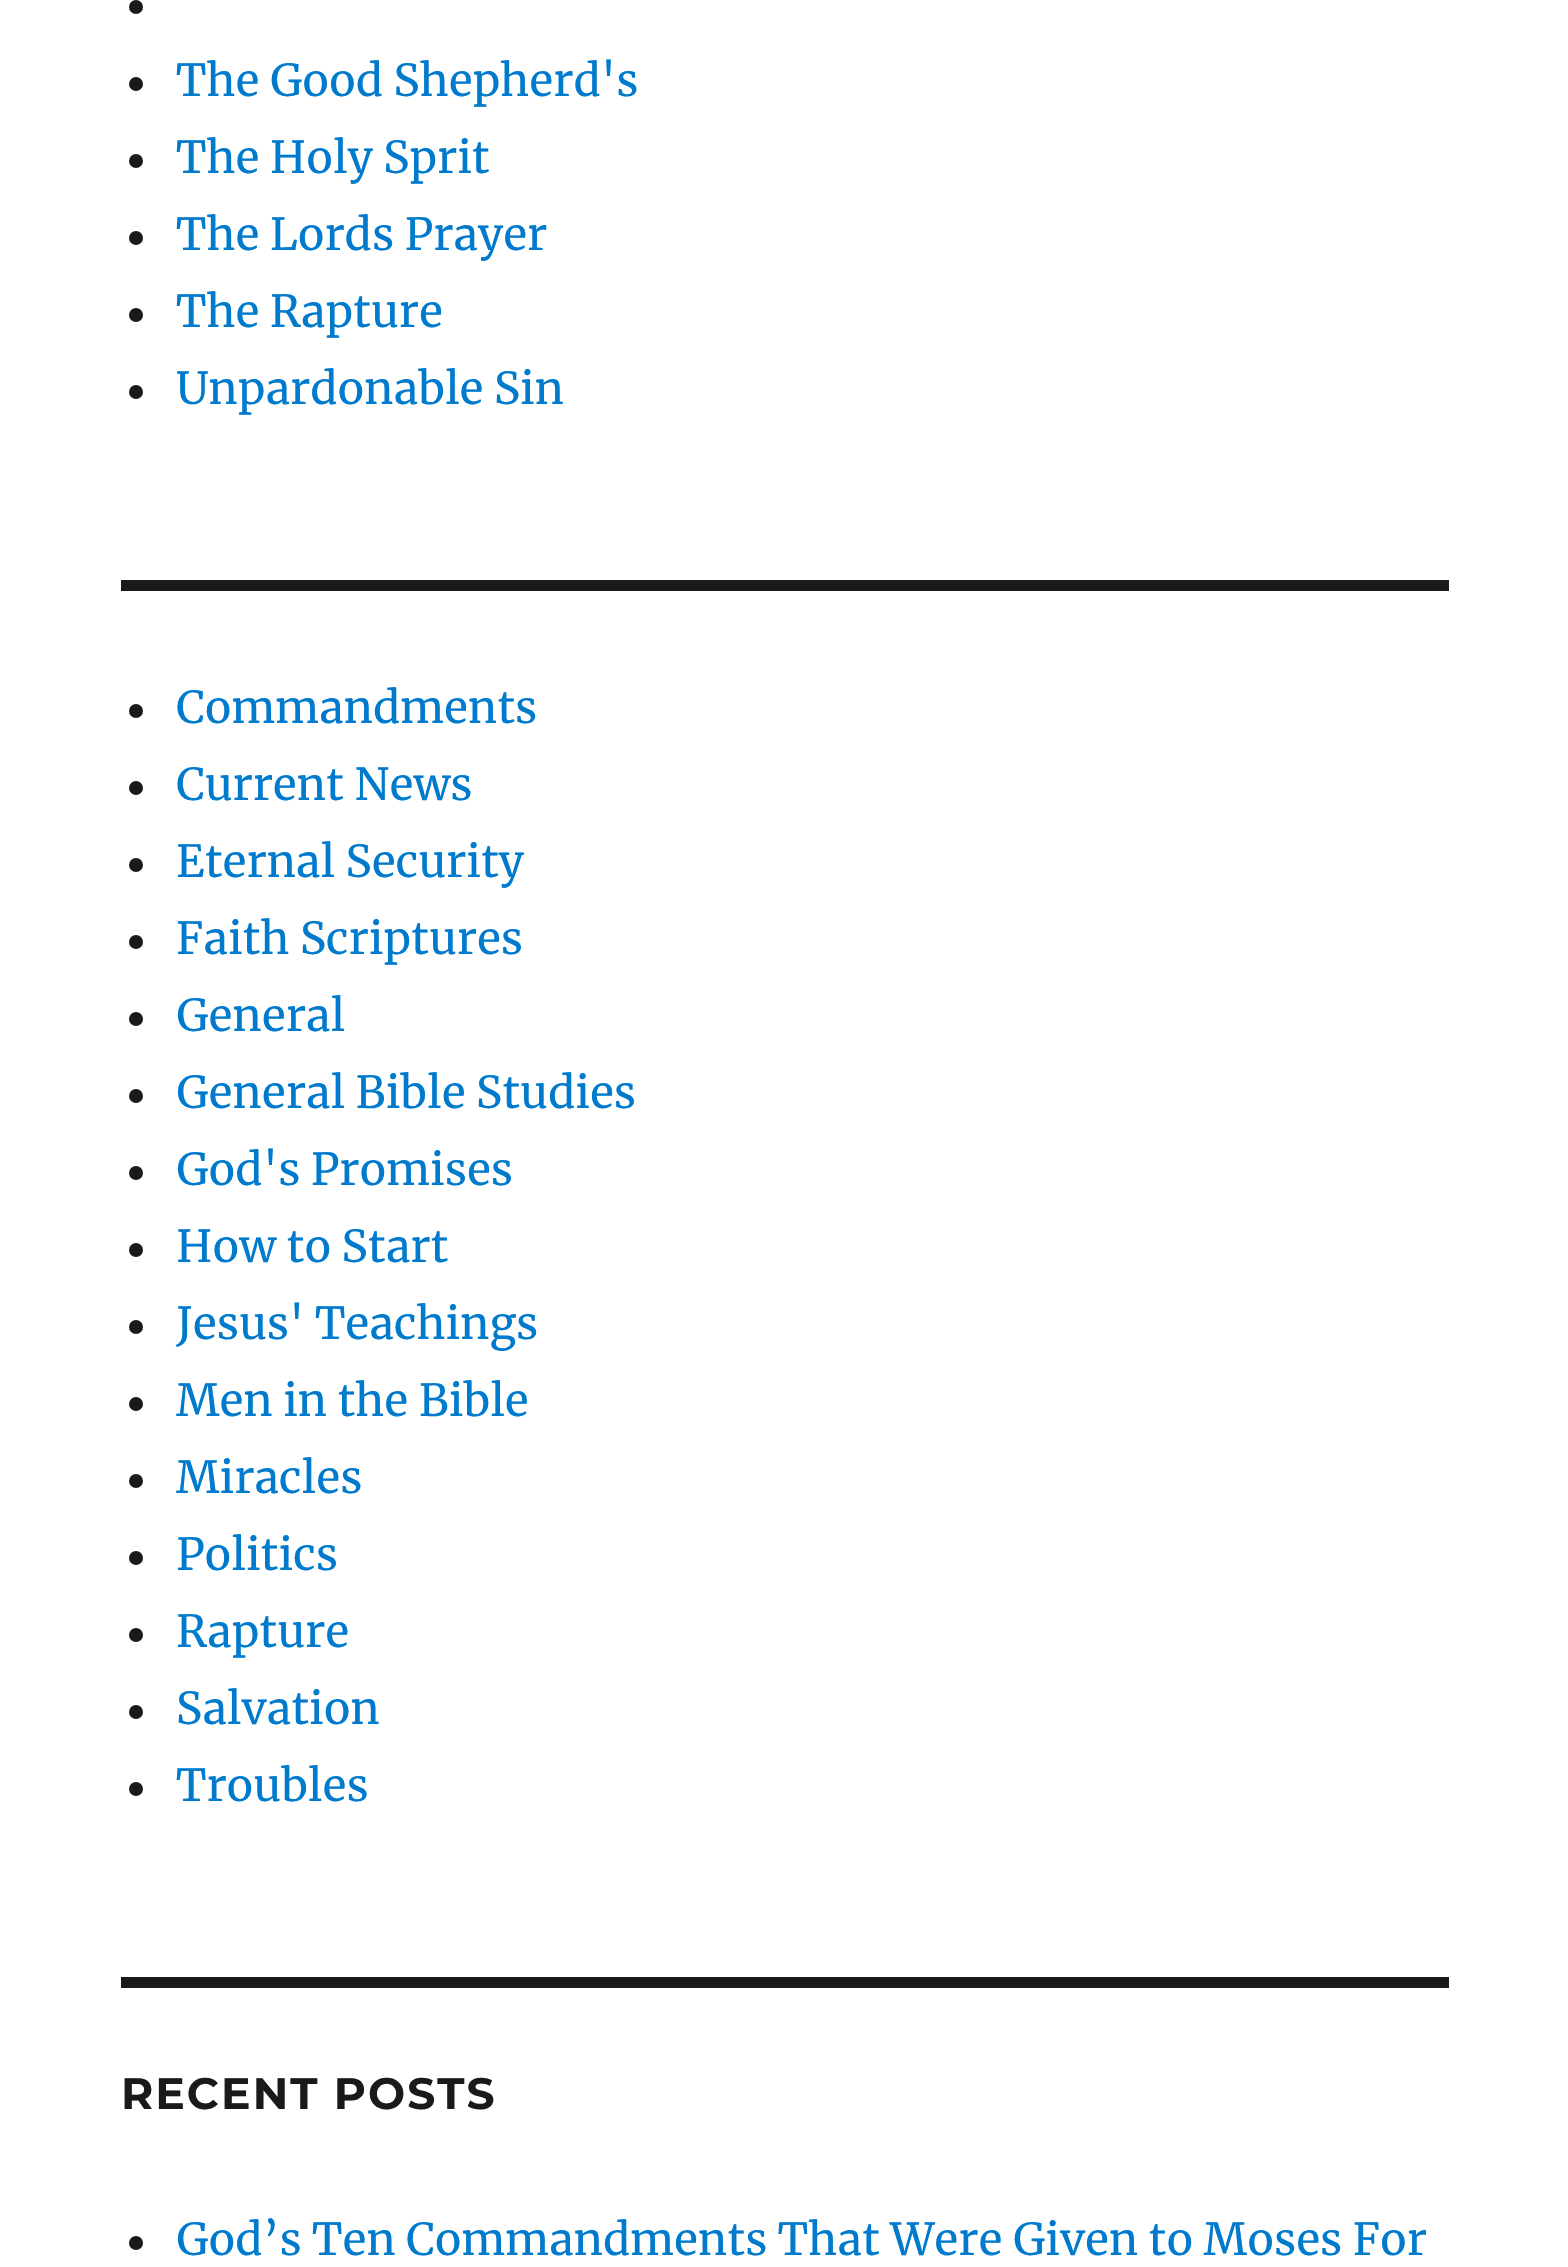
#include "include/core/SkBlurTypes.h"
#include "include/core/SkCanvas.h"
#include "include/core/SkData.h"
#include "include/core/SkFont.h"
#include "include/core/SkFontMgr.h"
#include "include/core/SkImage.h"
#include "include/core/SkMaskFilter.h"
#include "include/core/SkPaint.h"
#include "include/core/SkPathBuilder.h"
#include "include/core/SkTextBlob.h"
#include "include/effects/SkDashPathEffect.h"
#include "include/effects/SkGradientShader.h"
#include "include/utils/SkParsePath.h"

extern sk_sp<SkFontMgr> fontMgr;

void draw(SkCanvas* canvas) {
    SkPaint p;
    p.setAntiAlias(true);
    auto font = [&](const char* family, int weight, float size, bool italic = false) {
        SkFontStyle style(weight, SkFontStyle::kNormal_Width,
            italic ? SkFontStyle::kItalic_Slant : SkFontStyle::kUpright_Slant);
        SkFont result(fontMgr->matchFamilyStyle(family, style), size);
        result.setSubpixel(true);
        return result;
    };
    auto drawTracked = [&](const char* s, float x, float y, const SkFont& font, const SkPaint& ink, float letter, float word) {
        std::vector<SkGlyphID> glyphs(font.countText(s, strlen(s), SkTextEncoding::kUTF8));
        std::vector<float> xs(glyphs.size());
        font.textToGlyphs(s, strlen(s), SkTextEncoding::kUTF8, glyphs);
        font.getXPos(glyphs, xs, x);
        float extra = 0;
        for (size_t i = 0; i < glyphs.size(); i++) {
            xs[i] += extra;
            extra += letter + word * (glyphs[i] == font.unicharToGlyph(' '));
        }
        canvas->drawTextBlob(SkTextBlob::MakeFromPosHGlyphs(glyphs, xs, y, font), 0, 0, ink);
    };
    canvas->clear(0xFFFFFFFF);
    p.setColor(0xFF1A1A1A);
    canvas->drawCircle(136, 7, 7, p);
    canvas->drawCircle(136, 84, 7, p);
    auto font1 = font("Merriweather", 400, 44);
    p.setColor(0xFF007ACC);
    canvas->drawString("The Good Shepherd's", 176, 96, font1, p);
    p.setColor(0xFF1A1A1A);
    canvas->drawCircle(136, 161, 7, p);
    p.setColor(0xFF007ACC);
    canvas->drawString("The Holy Sprit", 176, 173, font1, p);
    p.setColor(0xFF1A1A1A);
    canvas->drawCircle(136, 238, 7, p);
    p.setColor(0xFF007ACC);
    canvas->drawString("The Lords Prayer", 176, 250, font1, p);
    p.setColor(0xFF1A1A1A);
    canvas->drawCircle(136, 315, 7, p);
    p.setColor(0xFF007ACC);
    canvas->drawString("The Rapture", 176, 327, font1, p);
    p.setColor(0xFF1A1A1A);
    canvas->drawCircle(136, 392, 7, p);
    p.setColor(0xFF007ACC);
    canvas->drawString("Unpardonable Sin", 176, 404, font1, p);
    p.setColor(0xFF1A1A1A);
    canvas->drawRect(SkRect::MakeLTRB(121, 580, 1449, 591), p);
    canvas->drawCircle(136, 711, 7, p);
    p.setColor(0xFF007ACC);
    canvas->drawString("Commandments", 176, 723, font1, p);
    p.setColor(0xFF1A1A1A);
    canvas->drawCircle(136, 788, 7, p);
    p.setColor(0xFF007ACC);
    canvas->drawString("Current News", 176, 800, font1, p);
    p.setColor(0xFF1A1A1A);
    canvas->drawCircle(136, 865, 7, p);
    p.setColor(0xFF007ACC);
    canvas->drawString("Eternal Security", 176, 877, font1, p);
    p.setColor(0xFF1A1A1A);
    canvas->drawCircle(136, 942, 7, p);
    p.setColor(0xFF007ACC);
    canvas->drawString("Faith Scriptures", 176, 954, font1, p);
    p.setColor(0xFF1A1A1A);
    canvas->drawCircle(136, 1019, 7, p);
    p.setColor(0xFF007ACC);
    canvas->drawString("General", 176, 1031, font1, p);
    p.setColor(0xFF1A1A1A);
    canvas->drawCircle(136, 1096, 7, p);
    p.setColor(0xFF007ACC);
    canvas->drawString("General Bible Studies", 176, 1108, font1, p);
    p.setColor(0xFF1A1A1A);
    canvas->drawCircle(136, 1173, 7, p);
    p.setColor(0xFF007ACC);
    canvas->drawString("God's Promises", 176, 1185, font1, p);
    p.setColor(0xFF1A1A1A);
    canvas->drawCircle(136, 1250, 7, p);
    p.setColor(0xFF007ACC);
    canvas->drawString("How to Start", 176, 1262, font1, p);
    p.setColor(0xFF1A1A1A);
    canvas->drawCircle(136, 1327, 7, p);
    p.setColor(0xFF007ACC);
    canvas->drawString("Jesus' Teachings", 176, 1339, font1, p);
    p.setColor(0xFF1A1A1A);
    canvas->drawCircle(136, 1404, 7, p);
    p.setColor(0xFF007ACC);
    canvas->drawString("Men in the Bible", 176, 1416, font1, p);
    p.setColor(0xFF1A1A1A);
    canvas->drawCircle(136, 1481, 7, p);
    p.setColor(0xFF007ACC);
    canvas->drawString("Miracles", 176, 1493, font1, p);
    p.setColor(0xFF1A1A1A);
    canvas->drawCircle(136, 1558, 7, p);
    p.setColor(0xFF007ACC);
    canvas->drawString("Politics", 176, 1570, font1, p);
    p.setColor(0xFF1A1A1A);
    canvas->drawCircle(136, 1635, 7, p);
    p.setColor(0xFF007ACC);
    canvas->drawString("Rapture", 176, 1647, font1, p);
    p.setColor(0xFF1A1A1A);
    canvas->drawCircle(136, 1712, 7, p);
    p.setColor(0xFF007ACC);
    canvas->drawString("Salvation", 176, 1724, font1, p);
    p.setColor(0xFF1A1A1A);
    canvas->drawCircle(136, 1789, 7, p);
    p.setColor(0xFF007ACC);
    canvas->drawString("Troubles", 176, 1801, font1, p);
    p.setColor(0xFF1A1A1A);
    canvas->drawRect(SkRect::MakeLTRB(121, 1977, 1449, 1988), p);
    auto font2 = font("Montserrat", 100, 44);
    drawTracked("RECENT POSTS", 121, 2109, font2, p, 2, 0);
    canvas->drawCircle(136, 2243, 7, p);
    p.setColor(0xFF007ACC);
    canvas->drawString("God’s Ten Commandments That Were Given to Moses For", 176, 2255, font1, p);
}
